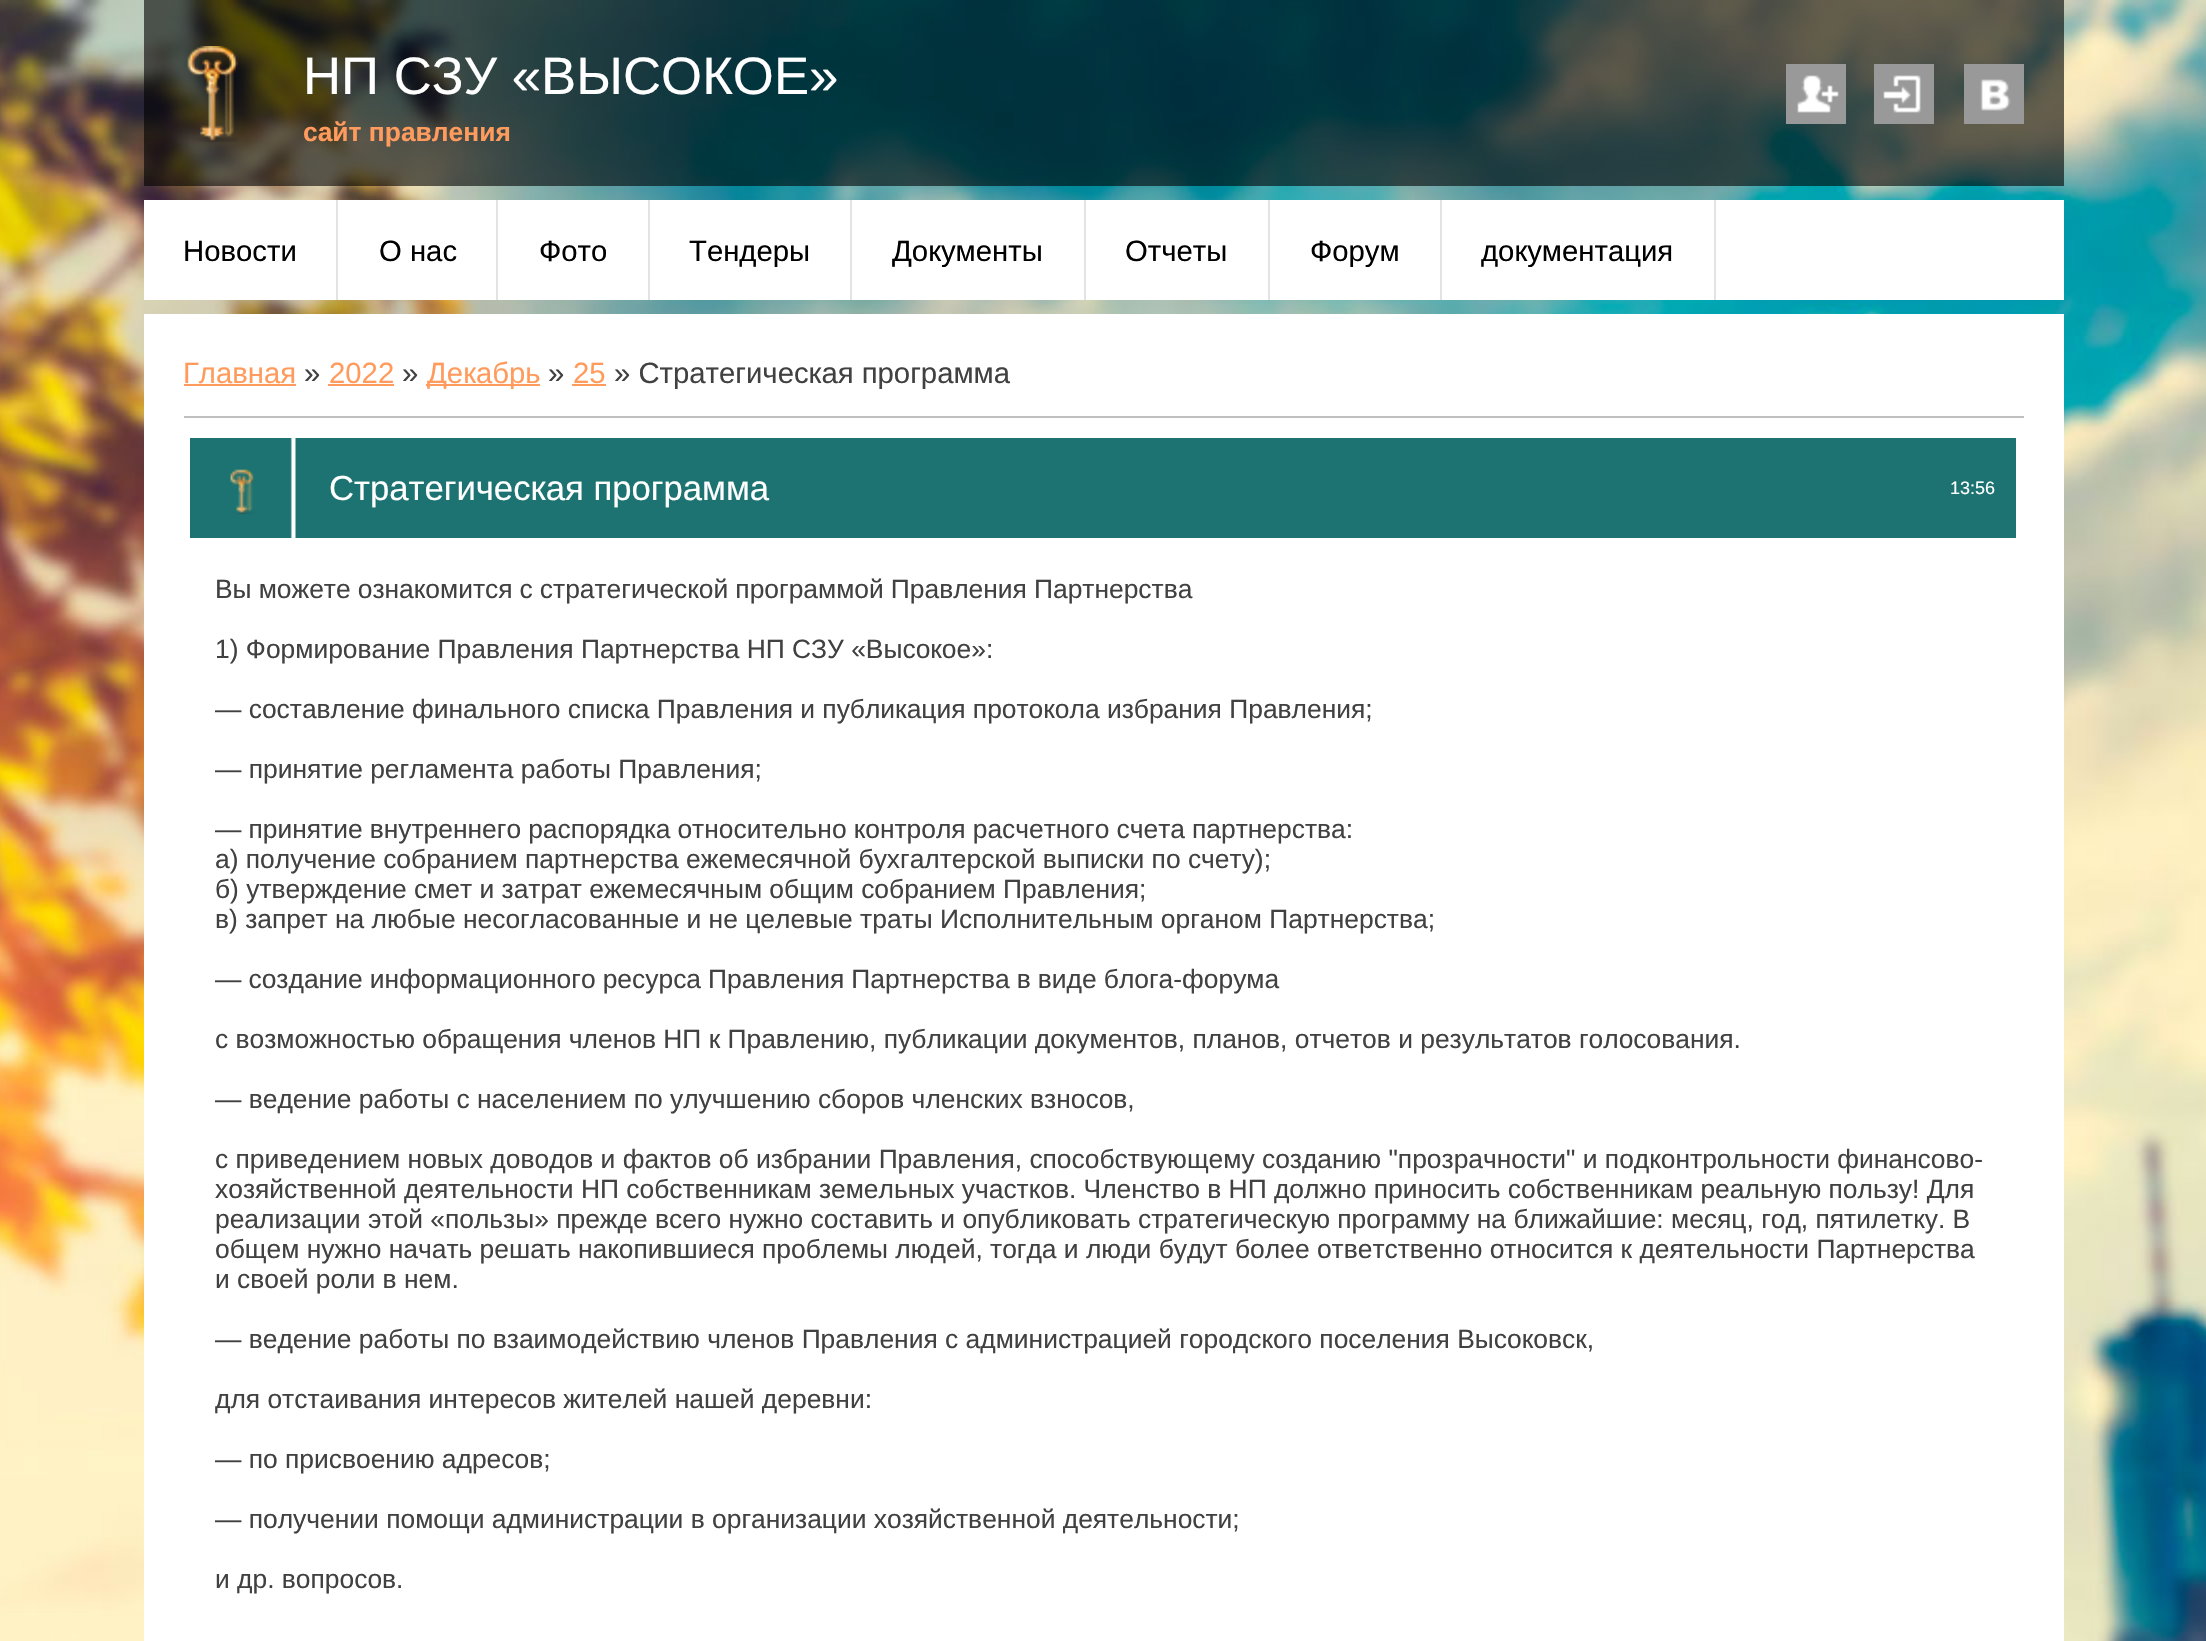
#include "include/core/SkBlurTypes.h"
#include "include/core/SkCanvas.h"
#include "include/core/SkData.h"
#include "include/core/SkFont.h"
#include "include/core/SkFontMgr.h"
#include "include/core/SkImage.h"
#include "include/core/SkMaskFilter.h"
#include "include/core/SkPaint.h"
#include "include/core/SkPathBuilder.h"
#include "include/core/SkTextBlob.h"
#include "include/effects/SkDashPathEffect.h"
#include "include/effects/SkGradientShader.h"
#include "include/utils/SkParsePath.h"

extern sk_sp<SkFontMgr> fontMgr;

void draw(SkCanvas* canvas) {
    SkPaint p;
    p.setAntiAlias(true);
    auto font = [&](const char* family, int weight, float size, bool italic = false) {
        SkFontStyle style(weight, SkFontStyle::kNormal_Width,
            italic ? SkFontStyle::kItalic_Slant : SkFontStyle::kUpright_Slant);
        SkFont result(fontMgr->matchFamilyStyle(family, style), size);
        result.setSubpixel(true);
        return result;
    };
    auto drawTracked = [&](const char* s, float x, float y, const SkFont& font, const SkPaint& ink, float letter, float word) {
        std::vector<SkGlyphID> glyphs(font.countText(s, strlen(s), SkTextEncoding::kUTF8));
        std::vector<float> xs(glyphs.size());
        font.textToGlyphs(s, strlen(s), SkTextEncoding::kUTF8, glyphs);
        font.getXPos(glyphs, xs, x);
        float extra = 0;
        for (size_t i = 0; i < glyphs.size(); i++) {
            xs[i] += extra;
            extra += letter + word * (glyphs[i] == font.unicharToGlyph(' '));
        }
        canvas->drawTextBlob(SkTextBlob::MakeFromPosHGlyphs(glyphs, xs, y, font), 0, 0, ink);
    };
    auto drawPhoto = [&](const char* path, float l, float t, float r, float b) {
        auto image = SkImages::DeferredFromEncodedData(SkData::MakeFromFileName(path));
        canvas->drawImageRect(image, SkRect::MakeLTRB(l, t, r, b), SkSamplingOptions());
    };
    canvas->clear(0xFFFFFFFF);
    drawPhoto("media/1.png", 0, 0, 2206, 1641);
    p.setColor(0x99000000);
    canvas->drawRect(SkRect::MakeLTRB(144, 0, 2064, 186), p);
    drawPhoto("media/2.png", 187, 46, 238, 142);
    auto font1 = font("Liberation Sans", 400, 52.75f);
    p.setColor(0xFFFFFFFF);
    canvas->drawString("НП СЗУ «ВЫСОКОЕ»", 303, 94, font1, p);
    auto font2 = font("Liberation Sans", 700, 26.4f);
    p.setColor(0xFFFF9B5D);
    canvas->drawString("сайт правления", 303, 141, font2, p);
    p.setColor(0xFF999999);
    canvas->drawRect(SkRect::MakeLTRB(1786, 64, 1846, 124), p);
    drawPhoto("media/3.png", 1797, 75, 1839, 113);
    canvas->drawRect(SkRect::MakeLTRB(1874, 64, 1934, 124), p);
    drawPhoto("media/4.png", 1883, 75, 1921, 113);
    canvas->drawRect(SkRect::MakeLTRB(1964, 64, 2024, 124), p);
    drawPhoto("media/5.png", 1980, 79, 2011, 111);
    p.setColor(0xFFFFFFFF);
    canvas->drawRect(SkRect::MakeLTRB(144, 200, 2064, 300), p);
    auto font3 = font("Liberation Sans", 400, 29.3f);
    p.setColor(0xFF000000);
    canvas->drawString("Новости", 183, 261, font3, p);
    p.setColor(0xFFE3E3E3);
    canvas->drawRect(SkRect::MakeLTRB(336, 200, 338, 300), p);
    p.setColor(0xFF000000);
    canvas->drawString("О нас", 379, 261, font3, p);
    p.setColor(0xFFE3E3E3);
    canvas->drawRect(SkRect::MakeLTRB(496, 200, 498, 300), p);
    p.setColor(0xFF000000);
    canvas->drawString("Фото", 539, 261, font3, p);
    p.setColor(0xFFE3E3E3);
    canvas->drawRect(SkRect::MakeLTRB(648, 200, 650, 300), p);
    p.setColor(0xFF000000);
    canvas->drawString("Тендеры", 689, 261, font3, p);
    p.setColor(0xFFE3E3E3);
    canvas->drawRect(SkRect::MakeLTRB(850, 200, 852, 300), p);
    p.setColor(0xFF000000);
    canvas->drawString("Документы", 892, 261, font3, p);
    p.setColor(0xFFE3E3E3);
    canvas->drawRect(SkRect::MakeLTRB(1084, 200, 1086, 300), p);
    p.setColor(0xFF000000);
    canvas->drawString("Отчеты", 1125, 261, font3, p);
    p.setColor(0xFFE3E3E3);
    canvas->drawRect(SkRect::MakeLTRB(1268, 200, 1270, 300), p);
    p.setColor(0xFF000000);
    canvas->drawString("Форум", 1310, 261, font3, p);
    p.setColor(0xFFE3E3E3);
    canvas->drawRect(SkRect::MakeLTRB(1714, 200, 1716, 300), p);
    canvas->drawRect(SkRect::MakeLTRB(1440, 200, 1442, 300), p);
    p.setColor(0xFF000000);
    canvas->drawString("документация", 1481, 261, font3, p);
    p.setColor(0xFFFFFFFF);
    canvas->drawRect(SkRect::MakeLTRB(144, 314, 2064, 1641), p);
    p.setColor(0xFFFF9B5D);
    canvas->drawString("Главная", 183, 383, font3, p);
    canvas->drawRect(SkRect::MakeLTRB(184, 384, 296, 386), p);
    p.setColor(0xFF414141);
    canvas->drawString("»", 304, 383, font3, p);
    p.setColor(0xFFFF9B5D);
    canvas->drawString("2022", 329, 383, font3, p);
    canvas->drawRect(SkRect::MakeLTRB(328, 384, 394, 386), p);
    p.setColor(0xFF414141);
    canvas->drawString("»", 402, 383, font3, p);
    p.setColor(0xFFFF9B5D);
    canvas->drawRect(SkRect::MakeLTRB(426, 384, 540, 386), p);
    canvas->drawString("Декабрь", 427, 383, font3, p);
    p.setColor(0xFF414141);
    canvas->drawString("»", 548, 383, font3, p);
    p.setColor(0xFFFF9B5D);
    canvas->drawString("25", 573, 383, font3, p);
    canvas->drawRect(SkRect::MakeLTRB(572, 384, 606, 386), p);
    p.setColor(0xFF414141);
    canvas->drawString("» Стратегическая программа", 614, 383, font3, p);
    p.setColor(0xFFBFBFBF);
    canvas->drawRect(SkRect::MakeLTRB(184, 416, 2024, 418), p);
    p.setColor(0xFF1C7372);
    canvas->drawRect(SkRect::MakeLTRB(190, 438, 2016, 538), p);
    drawPhoto("media/6.png", 230, 438, 296, 538);
    auto font4 = font("Liberation Sans", 400, 34.7f);
    p.setColor(0xFFFFFFFF);
    canvas->drawString("Стратегическая программа", 329, 500, font4, p);
    auto font5 = font("Liberation Sans", 400, 18);
    canvas->drawString("13:56", 1950, 494, font5, p);
    auto font6 = font("Liberation Sans", 400, 26.4f);
    p.setColor(0xFF414141);
    drawTracked("Вы можете ознакомится с стратегической программой Правления Партнерства", 215, 598, font6, p, 0, -0.25f);
    {
        const struct { const char* s; float x, y; } items[] = {
            {"1) Формирование Правления Партнерства НП СЗУ «Высокое»:", 215, 658},
            {"— составление финального списка Правления и публикация протокола избрания Правления;", 215, 718},
            {"— принятие регламента работы Правления;", 215, 778},
        };
        for (auto [s, x, y] : items) {
            canvas->drawString(s, x, y, font6, p);
        }
    }
    drawTracked("— принятие внутреннего распорядка относительно контроля расчетного счета партнерства:", 215, 838, font6, p, 0, -0.25f);
    {
        const struct { const char* s; float x, y; } items[] = {
            {"а) получение собранием партнерства ежемесячной бухгалтерской выписки по счету);", 215, 868},
            {"б) утверждение смет и затрат ежемесячным общим собранием Правления;", 215, 898},
            {"в) запрет на любые несогласованные и не целевые траты Исполнительным органом Партнерства;", 215, 928},
        };
        for (auto [s, x, y] : items) {
            canvas->drawString(s, x, y, font6, p);
        }
    }
    drawTracked("— создание информационного ресурса Правления Партнерства в виде блога-форума", 215, 988, font6, p, 0, -0.25f);
    {
        const struct { const char* s; float x, y; } items[] = {
            {"с возможностью обращения членов НП к Правлению, публикации документов, планов, отчетов и результатов голосования.", 215, 1048},
            {"— ведение работы с населением по улучшению сборов членских взносов,", 215, 1108},
            {"с приведением новых доводов и фактов об избрании Правления, способствующему созданию \"прозрачности\" и подконтрольности финансово-", 215, 1168},
            {"хозяйственной деятельности НП собственникам земельных участков. Членство в НП должно приносить собственникам реальную пользу! Для", 215, 1198},
            {"реализации этой «пользы» прежде всего нужно составить и опубликовать стратегическую программу на ближайшие: месяц, год, пятилетку. В", 215, 1228},
            {"общем нужно начать решать накопившиеся проблемы людей, тогда и люди будут более ответственно относится к деятельности Партнерства", 215, 1258},
            {"и своей роли в нем.", 215, 1288},
            {"— ведение работы по взаимодействию членов Правления с администрацией городского поселения Высоковск,", 215, 1348},
            {"для отстаивания интересов жителей нашей деревни:", 215, 1408},
            {"— по присвоению адресов;", 215, 1468},
            {"— получении помощи администрации в организации хозяйственной деятельности;", 215, 1528},
            {"и др. вопросов.", 215, 1588},
        };
        for (auto [s, x, y] : items) {
            canvas->drawString(s, x, y, font6, p);
        }
    }
}
